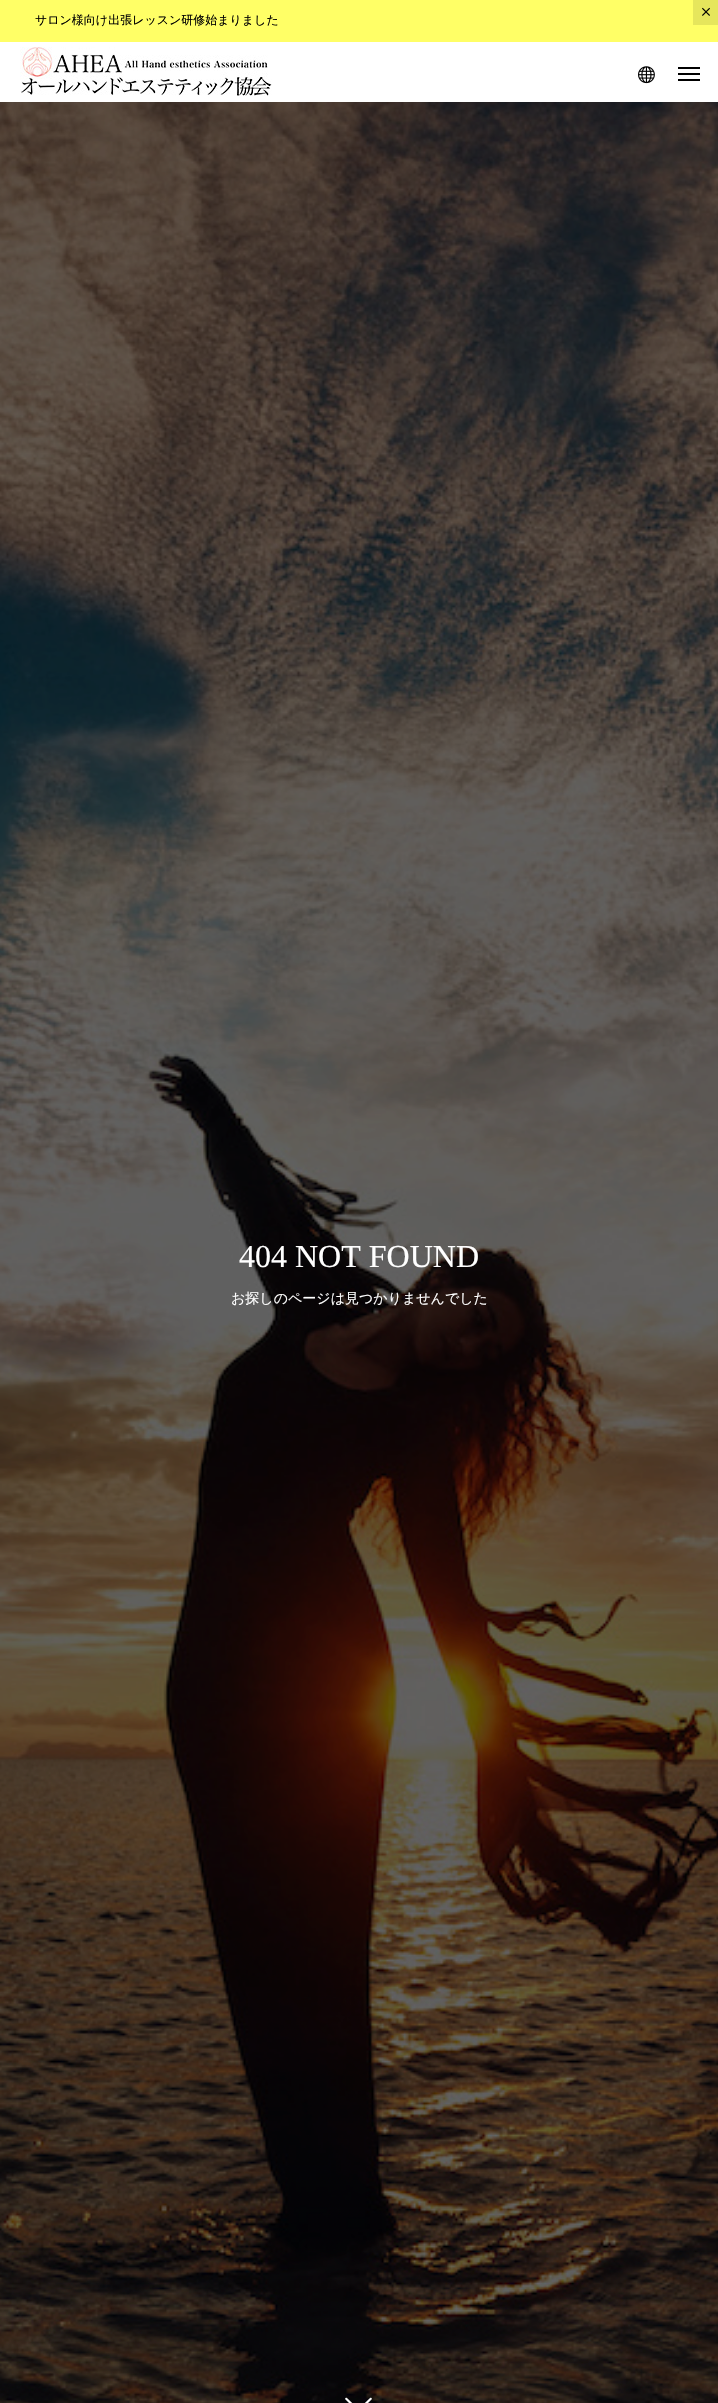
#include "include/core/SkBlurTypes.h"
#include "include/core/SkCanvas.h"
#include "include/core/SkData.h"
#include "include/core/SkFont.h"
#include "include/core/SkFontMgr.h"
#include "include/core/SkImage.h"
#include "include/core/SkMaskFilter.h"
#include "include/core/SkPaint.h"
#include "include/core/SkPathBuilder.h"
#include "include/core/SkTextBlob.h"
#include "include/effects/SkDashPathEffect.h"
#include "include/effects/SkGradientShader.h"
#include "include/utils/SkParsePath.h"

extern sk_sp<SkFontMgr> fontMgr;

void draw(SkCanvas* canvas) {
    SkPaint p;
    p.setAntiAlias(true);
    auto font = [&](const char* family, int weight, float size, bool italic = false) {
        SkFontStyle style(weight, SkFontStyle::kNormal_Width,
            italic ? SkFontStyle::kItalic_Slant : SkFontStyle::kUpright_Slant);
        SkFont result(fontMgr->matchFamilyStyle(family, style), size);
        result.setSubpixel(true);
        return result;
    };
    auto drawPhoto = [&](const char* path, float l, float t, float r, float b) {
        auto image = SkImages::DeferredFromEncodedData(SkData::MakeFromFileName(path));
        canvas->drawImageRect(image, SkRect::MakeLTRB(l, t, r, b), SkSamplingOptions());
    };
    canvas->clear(0xFFFFFFFF);
    p.setColor(0xFFFFFF66);
    canvas->drawRect(SkRect::MakeLTRB(0, 0, 718, 42), p);
    auto font1 = font("WenQuanYi Zen Hei", 500, 12);
    p.setColor(0xFF000000);
    canvas->drawString("サロン様向け出張レッスン研修始まりました", 35, 24, font1, p);
    p.setColor(0xFFE6E65C);
    canvas->drawRect(SkRect::MakeLTRB(693, 0, 718, 25), p);
    drawPhoto("media/1.png", 702, 7, 710, 16);
    drawPhoto("media/2.png", 20, 47, 272, 96);
    drawPhoto("media/3.png", 638, 66, 655, 84);
    {
        const struct { float l, t, r, b; SkColor color; } items[] = {
            {678, 67, 700, 69, 0xFF000000},
            {678, 73, 700, 75, 0xFF000000},
            {678, 79, 700, 81, 0xFF000000},
        };
        for (auto [l, t, r, b, color] : items) {
            p.setColor(color);
            canvas->drawRect(SkRect::MakeLTRB(l, t, r, b), p);
        }
    }
    drawPhoto("media/4.png", 0, 102, 718, 2403);
    auto font2 = font("Liberation Serif", 400, 32);
    p.setColor(0xFFFFFFFF);
    canvas->drawString("404 NOT FOUND", 239, 1267, font2, p);
    auto font3 = font("WenQuanYi Zen Hei", 500, 14);
    canvas->drawString("お探しのページは見つかりませんでした", 231, 1303, font3, p);
    drawPhoto("media/5.png", 345, 2397, 372, 2403);
}
